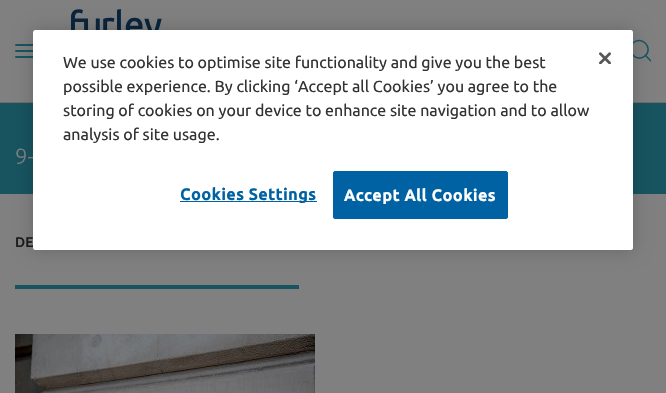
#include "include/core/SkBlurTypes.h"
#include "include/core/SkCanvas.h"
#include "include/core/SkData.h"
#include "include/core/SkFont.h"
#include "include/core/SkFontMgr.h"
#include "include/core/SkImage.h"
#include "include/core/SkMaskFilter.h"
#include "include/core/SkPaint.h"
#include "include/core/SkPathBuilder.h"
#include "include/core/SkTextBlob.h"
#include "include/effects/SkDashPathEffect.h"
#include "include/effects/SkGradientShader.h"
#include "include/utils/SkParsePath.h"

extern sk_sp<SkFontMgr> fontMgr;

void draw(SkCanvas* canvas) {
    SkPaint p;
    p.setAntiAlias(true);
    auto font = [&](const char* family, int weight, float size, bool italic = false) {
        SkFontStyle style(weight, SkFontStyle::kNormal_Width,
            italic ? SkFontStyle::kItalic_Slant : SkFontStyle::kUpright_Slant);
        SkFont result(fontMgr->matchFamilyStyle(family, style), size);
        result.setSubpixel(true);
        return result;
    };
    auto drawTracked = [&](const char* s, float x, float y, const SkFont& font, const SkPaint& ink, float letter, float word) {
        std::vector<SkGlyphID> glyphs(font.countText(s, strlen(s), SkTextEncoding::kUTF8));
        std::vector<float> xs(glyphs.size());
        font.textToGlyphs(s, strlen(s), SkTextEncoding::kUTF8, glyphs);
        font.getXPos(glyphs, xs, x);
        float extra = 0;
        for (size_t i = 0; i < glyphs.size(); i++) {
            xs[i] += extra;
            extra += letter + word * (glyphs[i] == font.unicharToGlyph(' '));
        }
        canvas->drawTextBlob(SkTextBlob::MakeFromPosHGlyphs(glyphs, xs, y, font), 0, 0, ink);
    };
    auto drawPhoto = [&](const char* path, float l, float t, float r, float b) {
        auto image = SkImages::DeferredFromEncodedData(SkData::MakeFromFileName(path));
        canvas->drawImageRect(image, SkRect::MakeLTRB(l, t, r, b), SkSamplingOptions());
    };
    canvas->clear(0xFF808080);
    p.setColor(0xFF6F6D6B);
    canvas->drawRect(SkRect::MakeLTRB(0, 102, 666, 103), p);
    drawPhoto("media/1.png", 71, 9, 162, 30);
    p.setColor(0xFF17545F);
    canvas->drawRoundRect(SkRect::MakeLTRB(15, 44, 39, 46), 1, 1, p);
    canvas->drawRoundRect(SkRect::MakeLTRB(15, 50, 39, 52), 1, 1, p);
    canvas->drawRoundRect(SkRect::MakeLTRB(15, 56, 39, 58), 1, 1, p);
    p.setStyle(SkPaint::kStroke_Style);
    p.setStrokeWidth(1.5f);
    canvas->drawPath(SkPathBuilder().moveTo(633, 43).cubicTo(641.5f, 35, 653.5f, 47.5f, 645.5f, 55.5f).cubicTo(637.5f, 63.5f, 625, 51.5f, 633, 43).close().detach(), p);
    canvas->save();
    canvas->clipRect(SkRect::MakeLTRB(626, 39, 651, 64));
    p.setStrokeCap(SkPaint::kRound_Cap);
    canvas->drawPath(SkPathBuilder().moveTo(645.5f, 55.5f).lineTo(655, 65).detach(), p);
    canvas->restore();
    p.setStyle(SkPaint::kFill_Style);
    canvas->drawRect(SkRect::MakeLTRB(0, 103, 666, 194), p);
    auto font1 = font("Ubuntu", 300, 22);
    p.setColor(0xFF808080);
    canvas->drawString("9-", 15, 164, font1, p);
    auto font2 = font("Ubuntu", 500, 14);
    p.setColor(0xFF1A1A1A);
    canvas->drawString("DE", 15, 247, font2, p);
    p.setColor(0xFF17545F);
    canvas->drawRect(SkRect::MakeLTRB(15, 285, 299, 289), p);
    drawPhoto("media/2.png", 15, 334, 315, 393);
    p.setColor(0x33000000);
    p.setMaskFilter(SkMaskFilter::MakeBlur(kNormal_SkBlurStyle, 9));
    canvas->drawRoundRect(SkRect::MakeLTRB(33, 30, 633, 250), 2.5f, 2.5f, p);
    p.setMaskFilter(nullptr);
    p.setColor(0xFFFFFFFF);
    canvas->drawRoundRect(SkRect::MakeLTRB(33, 30, 633, 250), 2.5f, 2.5f, p);
    auto font3 = font("Ubuntu", 400, 16);
    p.setColor(0xFF333333);
    {
        const struct { const char* s; float x, y; } items[] = {
            {"We use cookies to optimise site functionality and give you the best", 63, 68},
            {"possible experience. By clicking ‘Accept all Cookies’ you agree to the", 63, 92},
            {"storing of cookies on your device to enhance site navigation and to allow", 63, 116},
            {"analysis of site usage.", 63, 140},
        };
        for (auto [s, x, y] : items) {
            canvas->drawString(s, x, y, font3, p);
        }
    }
    drawPhoto("media/3.png", 599, 52, 611, 64);
    p.setColor(0xFF0062A3);
    canvas->drawRect(SkRect::MakeLTRB(180, 201, 317, 202), p);
    auto font4 = font("Ubuntu", 700, 16);
    drawTracked("Cookies Settings", 180, 200, font4, p, 0.75f, 0);
    canvas->drawRoundRect(SkRect::MakeLTRB(333.5f, 171.5f, 507.5f, 218.5f), 1.5f, 1.5f, p);
    p.setStyle(SkPaint::kStroke_Style);
    p.setStrokeWidth(1);
    p.setStrokeCap(SkPaint::kButt_Cap);
    canvas->drawRoundRect(SkRect::MakeLTRB(333.5f, 171.5f, 507.5f, 218.5f), 1.5f, 1.5f, p);
    p.setStyle(SkPaint::kFill_Style);
    p.setColor(0xFFFFFFFF);
    drawTracked("Accept All Cookies", 344, 201, font4, p, 0.75f, 0);
}
